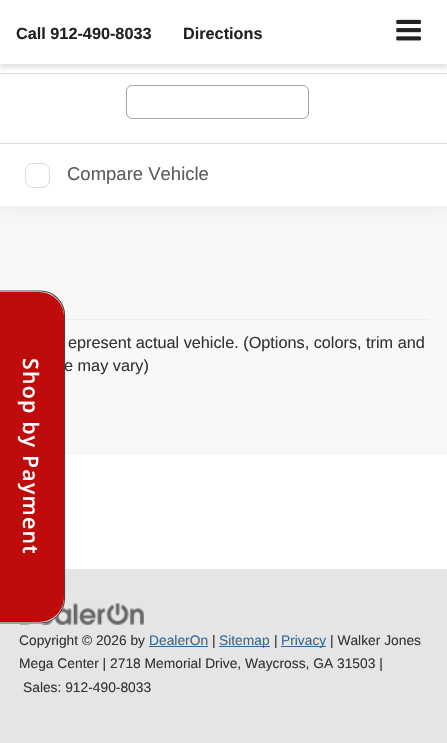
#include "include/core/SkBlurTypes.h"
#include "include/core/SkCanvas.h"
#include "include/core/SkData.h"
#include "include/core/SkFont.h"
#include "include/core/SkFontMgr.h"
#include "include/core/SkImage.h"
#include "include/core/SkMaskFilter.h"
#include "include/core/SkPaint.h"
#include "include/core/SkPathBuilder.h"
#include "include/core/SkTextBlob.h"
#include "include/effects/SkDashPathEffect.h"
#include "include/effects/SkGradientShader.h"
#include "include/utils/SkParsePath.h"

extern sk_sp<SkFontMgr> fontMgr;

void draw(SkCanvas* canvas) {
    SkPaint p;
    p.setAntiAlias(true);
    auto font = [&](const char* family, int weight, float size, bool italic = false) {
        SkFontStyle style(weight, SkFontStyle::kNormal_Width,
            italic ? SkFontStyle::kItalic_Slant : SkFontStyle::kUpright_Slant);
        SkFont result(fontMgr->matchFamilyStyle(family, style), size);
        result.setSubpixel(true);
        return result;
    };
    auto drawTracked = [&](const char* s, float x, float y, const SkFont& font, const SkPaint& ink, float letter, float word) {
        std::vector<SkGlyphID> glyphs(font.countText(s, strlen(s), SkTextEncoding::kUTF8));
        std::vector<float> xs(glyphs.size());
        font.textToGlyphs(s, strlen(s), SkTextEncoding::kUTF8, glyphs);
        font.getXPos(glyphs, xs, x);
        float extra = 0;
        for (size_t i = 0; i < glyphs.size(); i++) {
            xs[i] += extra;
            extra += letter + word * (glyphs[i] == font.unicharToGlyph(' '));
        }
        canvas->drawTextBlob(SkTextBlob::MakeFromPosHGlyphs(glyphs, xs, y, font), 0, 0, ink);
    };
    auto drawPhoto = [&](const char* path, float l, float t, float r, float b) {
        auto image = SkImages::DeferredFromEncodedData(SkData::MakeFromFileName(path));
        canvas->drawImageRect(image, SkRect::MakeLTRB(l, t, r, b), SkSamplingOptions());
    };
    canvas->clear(0xFFFFFFFF);
    p.setColor(0xFFF8F8F8);
    canvas->drawRect(SkRect::MakeLTRB(0, 206, 447, 455), p);
    p.setColor(0x12000000);
    p.setMaskFilter(SkMaskFilter::MakeBlur(kNormal_SkBlurStyle, 9.5f));
    canvas->drawRect(SkRect::MakeLTRB(0, -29, 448, 206), p);
    p.setMaskFilter(nullptr);
    p.setColor(0xFFFFFFFF);
    canvas->drawRect(SkRect::MakeLTRB(0, 64, 447, 206), p);
    p.setColor(0xFFDCDCE2);
    canvas->drawRect(SkRect::MakeLTRB(0, 73, 447, 74), p);
    p.setColor(0x1A000000);
    p.setMaskFilter(SkMaskFilter::MakeBlur(kNormal_SkBlurStyle, 2));
    canvas->drawRect(SkRect::MakeLTRB(0, 4, 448, 68), p);
    p.setMaskFilter(nullptr);
    p.setColor(0xFFFFFFFF);
    canvas->drawRect(SkRect::MakeLTRB(0, 0, 447, 64), p);
    drawPhoto("media/1.png", 396, 19, 421, 41);
    auto font1 = font("Liberation Sans", 700, 16.25f);
    p.setColor(0xFF222222);
    canvas->drawString("Call 912-490-8033", 16, 39, font1, p);
    canvas->drawString("Directions", 183, 39, font1, p);
    p.setStyle(SkPaint::kStroke_Style);
    p.setStrokeWidth(1);
    p.setColor(0xFFA5A5A5);
    canvas->drawRoundRect(SkRect::MakeLTRB(126.5f, 85.5f, 308.5f, 118.5f), 5.5f, 5.5f, p);
    p.setStyle(SkPaint::kFill_Style);
    p.setColor(0xFFDCDCE2);
    canvas->drawRect(SkRect::MakeLTRB(0, 143, 447, 144), p);
    p.setStyle(SkPaint::kStroke_Style);
    canvas->drawRoundRect(SkRect::MakeLTRB(25.5f, 163.5f, 49.5f, 187.5f), 7.5f, 7.5f, p);
    auto font2 = font("Liberation Sans", 400, 18.5f);
    p.setStyle(SkPaint::kFill_Style);
    p.setColor(0xFF5C5C5C);
    canvas->drawString("Compare Vehicle", 67, 180, font2, p);
    p.setColor(0xFFEDEDED);
    canvas->drawRect(SkRect::MakeLTRB(65, 319, 429, 320), p);
    auto font3 = font("Liberation Sans", 400, 16.25f);
    p.setColor(0xFF333333);
    canvas->drawString("epresent actual vehicle. (Options, colors, trim and", 68, 348, font3, p);
    canvas->drawString("e may vary)", 64, 371, font3, p);
    p.setColor(0xFFE5E5E5);
    canvas->drawRect(SkRect::MakeLTRB(0, 569, 447, 743), p);
    drawPhoto("media/2.png", 19, 603, 144, 625);
    auto font4 = font("Liberation Sans", 400, 13.8f);
    p.setColor(0xFF333333);
    canvas->drawString("Copyright © 2026 by", 19, 645, font4, p);
    p.setColor(0xFF2D6A9F);
    canvas->drawString("DealerOn", 149, 645, font4, p);
    canvas->drawRect(SkRect::MakeLTRB(149, 646, 208, 647), p);
    p.setColor(0xFF333333);
    canvas->drawString("|", 212, 645, font4, p);
    p.setColor(0xFF2D6A9F);
    canvas->drawRect(SkRect::MakeLTRB(219, 646, 270, 647), p);
    canvas->drawString("Sitemap", 219, 645, font4, p);
    p.setColor(0xFF333333);
    canvas->drawString("|", 274, 645, font4, p);
    p.setColor(0xFF2D6A9F);
    canvas->drawRect(SkRect::MakeLTRB(281, 646, 326, 647), p);
    canvas->drawString("Privacy", 281, 645, font4, p);
    p.setColor(0xFF333333);
    {
        const struct { const char* s; float x, y; } items[] = {
            {"| Walker Jones", 330, 645},
            {"Mega Center | 2718 Memorial Drive, Waycross, GA 31503 |", 19, 668},
            {"Sales: 912-490-8033", 23, 692},
        };
        for (auto [s, x, y] : items) {
            canvas->drawString(s, x, y, font4, p);
        }
    }
    p.setColor(0xFFFFFFFF);
    canvas->drawPath(SkPathBuilder().moveTo(65, 315).lineTo(65, 599).cubicTo(65, 612, 54, 624, 40, 624).lineTo(-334, 624).cubicTo(-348, 624, -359, 612, -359, 599).lineTo(-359, 315).cubicTo(-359, 302, -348, 290, -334, 290).lineTo(40, 290).cubicTo(54, 290, 65, 302, 65, 315).close().detach(), p);
    p.setStyle(SkPaint::kStroke_Style);
    p.setStrokeWidth(1.2f);
    p.setColor(0xFF444444);
    canvas->drawPath(SkPathBuilder().moveTo(64.5f, 315.5f).lineTo(64.5f, 598.5f).cubicTo(64.5f, 612, 53.5f, 623, 40.5f, 623).lineTo(-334.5f, 623).cubicTo(-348, 623, -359, 612, -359, 598.5f).lineTo(-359, 315.5f).cubicTo(-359, 302, -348, 291, -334.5f, 291).lineTo(40.5f, 291).cubicTo(53.5f, 291, 64.5f, 302, 64.5f, 315.5f).close().detach(), p);
    p.setStyle(SkPaint::kFill_Style);
    p.setColor(0xFFBF0B0B);
    canvas->drawPath(SkPathBuilder().moveTo(64, 317).lineTo(64, 597).cubicTo(64, 611, 53, 622, 39, 622).lineTo(-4, 622).lineTo(-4, 292).lineTo(39, 292).cubicTo(53, 292, 64, 303, 64, 317).close().detach(), p);
    auto font5 = font("Open Sans", 600, 21.25f);
    p.setColor(0xFFFFFFFF);
    canvas->save();
    canvas->rotate(90, 23, 358);
    drawTracked("Shop by Payment", 23, 358, font5, p, 1.25f, 0);
    canvas->restore();
}
